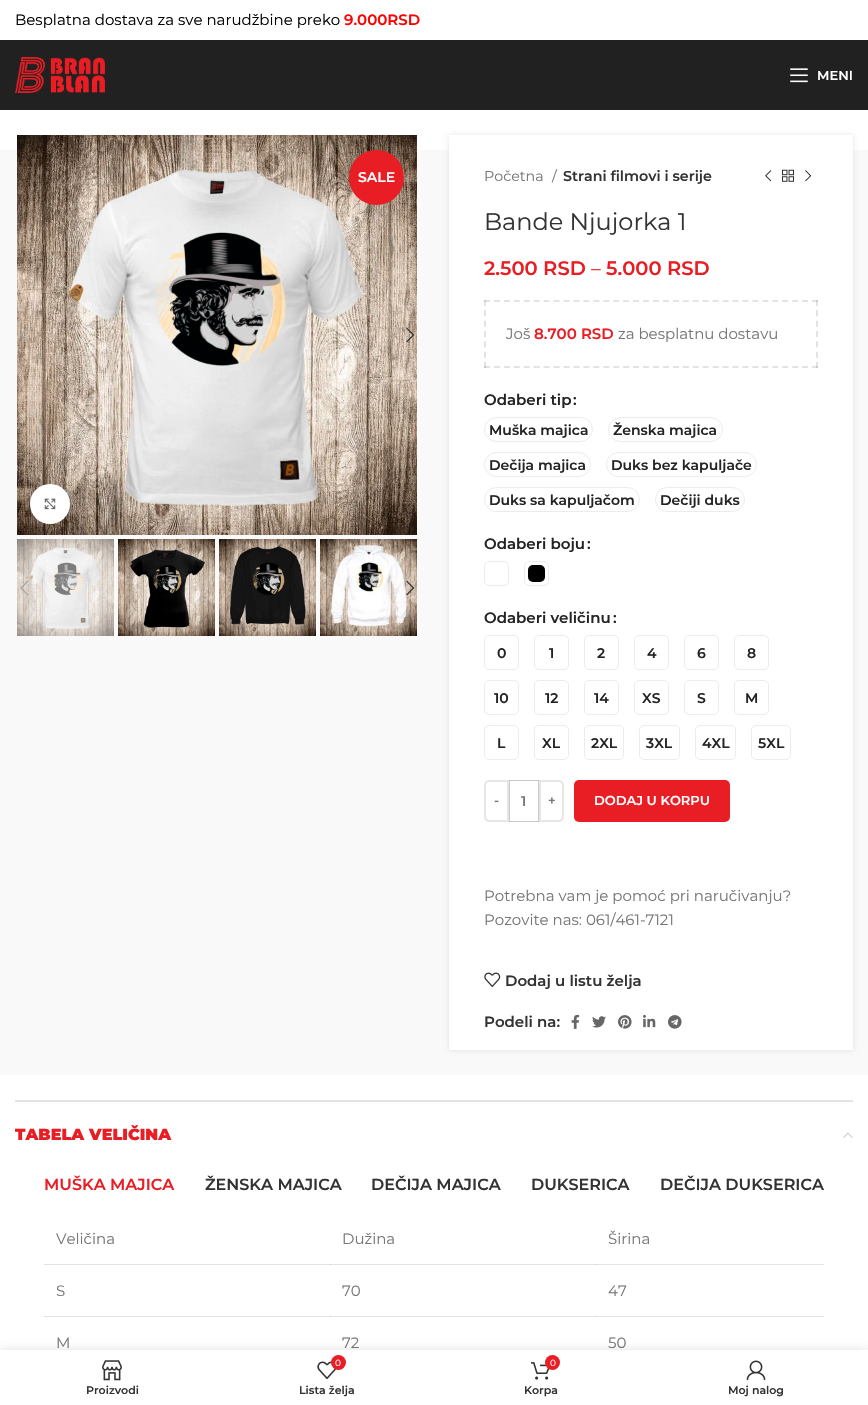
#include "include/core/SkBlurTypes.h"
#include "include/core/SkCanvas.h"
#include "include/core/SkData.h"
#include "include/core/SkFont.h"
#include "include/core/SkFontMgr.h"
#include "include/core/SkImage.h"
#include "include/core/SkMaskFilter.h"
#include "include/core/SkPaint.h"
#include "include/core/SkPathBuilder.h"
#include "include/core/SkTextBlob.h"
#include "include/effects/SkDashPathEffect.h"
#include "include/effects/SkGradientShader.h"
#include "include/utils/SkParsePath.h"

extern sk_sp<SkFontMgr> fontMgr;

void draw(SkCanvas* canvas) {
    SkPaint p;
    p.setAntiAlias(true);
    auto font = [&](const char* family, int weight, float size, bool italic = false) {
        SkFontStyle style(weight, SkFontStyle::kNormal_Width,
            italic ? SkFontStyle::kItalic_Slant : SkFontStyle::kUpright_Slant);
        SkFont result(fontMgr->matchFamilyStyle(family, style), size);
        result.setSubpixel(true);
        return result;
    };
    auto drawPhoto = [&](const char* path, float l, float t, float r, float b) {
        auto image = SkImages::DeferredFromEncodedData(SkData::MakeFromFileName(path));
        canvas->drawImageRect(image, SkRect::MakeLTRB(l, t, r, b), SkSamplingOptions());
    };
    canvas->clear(0xFFFFFFFF);
    auto font1 = font("Montserrat", 400, 15);
    p.setColor(0xFF000000);
    canvas->drawString("Besplatna dostava za sve narudžbine preko", 15, 25, font1, p);
    auto font2 = font("Montserrat", 600, 15);
    p.setColor(0xFFFF0000);
    canvas->drawString("9.000RSD", 344, 25, font2, p);
    p.setColor(0xFF212121);
    canvas->drawRect(SkRect::MakeLTRB(0, 40, 868, 110), p);
    drawPhoto("media/1.png", 15, 57, 105, 93);
    drawPhoto("media/2.png", 790, 68, 808, 83);
    auto font3 = font("Montserrat", 600, 13);
    p.setColor(0xFFFFFFFF);
    canvas->drawString("MENI", 817, 80, font3, p);
    p.setColor(0xFFF9F9F9);
    canvas->drawRect(SkRect::MakeLTRB(0, 150, 868, 1075), p);
    drawPhoto("media/3.png", 17, 135, 417, 535);
    drawPhoto("media/4.png", 20, 327, 29, 342);
    drawPhoto("media/5.png", 406, 327, 415, 343);
    p.setColor(0xFFE91D24);
    canvas->drawCircle(376.5f, 177.5f, 27.5f, p);
    auto font4 = font("Montserrat", 600, 14);
    p.setColor(0xFFFFFFFF);
    canvas->drawString("SALE", 358, 182, font4, p);
    p.setColor(0x14000000);
    p.setMaskFilter(SkMaskFilter::MakeBlur(kNormal_SkBlurStyle, 2.5f));
    canvas->drawRoundRect(SkRect::MakeLTRB(30, 484, 70, 524), 20, 20, p);
    p.setMaskFilter(nullptr);
    p.setColor(0xFFFFFFFF);
    canvas->drawCircle(50, 504, 20, p);
    drawPhoto("media/6.png", 44, 498, 56, 510);
    drawPhoto("media/7.png", 17, 539, 114, 636);
    drawPhoto("media/8.png", 118, 539, 215, 636);
    drawPhoto("media/9.png", 219, 539, 316, 636);
    drawPhoto("media/10.png", 320, 539, 417, 636);
    drawPhoto("media/11.png", 20, 580, 29, 596);
    drawPhoto("media/12.png", 406, 580, 415, 596);
    p.setColor(0x1A000000);
    p.setMaskFilter(SkMaskFilter::MakeBlur(kNormal_SkBlurStyle, 2.5f));
    canvas->drawRect(SkRect::MakeLTRB(449, 135, 853, 1050), p);
    p.setMaskFilter(nullptr);
    p.setColor(0xFFFFFFFF);
    canvas->drawRect(SkRect::MakeLTRB(449, 135, 853, 1050), p);
    auto font5 = font("Montserrat", 400, 14.25f);
    p.setColor(0xFF777777);
    canvas->drawString("Početna", 484, 181, font5, p);
    canvas->drawString("/", 552, 181, font5, p);
    auto font6 = font("Montserrat", 600, 14.25f);
    p.setColor(0xFF333333);
    canvas->drawString("Strani filmovi i serije", 563, 181, font6, p);
    drawPhoto("media/13.png", 765, 170, 772, 182);
    drawPhoto("media/14.png", 782, 169, 794, 182);
    drawPhoto("media/15.png", 805, 170, 812, 182);
    auto font7 = font("Montserrat", 400, 24);
    canvas->drawString("Bande Njujorka 1", 484, 230, font7, p);
    auto font8 = font("Montserrat", 600, 19.5f);
    p.setColor(0xFFE91D24);
    canvas->drawString("2.500 RSD", 484, 275, font8, p);
    auto font9 = font("Montserrat", 400, 19.5f);
    canvas->drawString("–", 591, 275, font9, p);
    canvas->drawString("5.000 RSD", 606, 275, font8, p);
    p.setStyle(SkPaint::kStroke_Style);
    p.setStrokeWidth(2);
    p.setColor(0xFFE4E4E4);
    p.setPathEffect(SkDashPathEffect::Make({{6, 3.94f}}, 0));
    canvas->drawPath(SkPathBuilder().moveTo(484, 301).lineTo(818, 301).detach(), p);
    p.setPathEffect(nullptr);
    p.setColor(0x1C000000);
    p.setPathEffect(SkDashPathEffect::Make({{6, 4.33f}}, 0));
    canvas->drawPath(SkPathBuilder().moveTo(817, 300).lineTo(817, 368).detach(), p);
    p.setPathEffect(nullptr);
    p.setPathEffect(SkDashPathEffect::Make({{6, 3.94f}}, 0));
    canvas->drawPath(SkPathBuilder().moveTo(484, 367).lineTo(818, 367).detach(), p);
    p.setPathEffect(nullptr);
    p.setPathEffect(SkDashPathEffect::Make({{6, 4.33f}}, 0));
    canvas->drawPath(SkPathBuilder().moveTo(485, 300).lineTo(485, 368).detach(), p);
    p.setPathEffect(nullptr);
    p.setStyle(SkPaint::kFill_Style);
    p.setColor(0xFF777777);
    canvas->drawString("Još", 506, 339, font1, p);
    p.setColor(0xFFE91D24);
    canvas->drawString("8.700 RSD", 534, 339, font2, p);
    p.setColor(0xFF777777);
    canvas->drawString("za besplatnu dostavu", 618, 339, font1, p);
    p.setColor(0xFF242424);
    canvas->drawString("Odaberi tip", 484, 405, font2, p);
    canvas->drawString(":", 573, 405, font2, p);
    p.setStyle(SkPaint::kStroke_Style);
    p.setStrokeWidth(1);
    p.setColor(0xFFECECEC);
    canvas->drawRoundRect(SkRect::MakeLTRB(484.5f, 417.5f, 592.5f, 441.5f), 12, 12, p);
    p.setStyle(SkPaint::kFill_Style);
    p.setColor(0xFF242424);
    canvas->drawString("Muška majica", 489, 435, font4, p);
    p.setStyle(SkPaint::kStroke_Style);
    p.setColor(0xFFECECEC);
    canvas->drawRoundRect(SkRect::MakeLTRB(608.5f, 417.5f, 722.5f, 441.5f), 12, 12, p);
    p.setStyle(SkPaint::kFill_Style);
    p.setColor(0xFF242424);
    canvas->drawString("Ženska majica", 613, 435, font4, p);
    p.setStyle(SkPaint::kStroke_Style);
    p.setColor(0xFFECECEC);
    canvas->drawRoundRect(SkRect::MakeLTRB(484.5f, 452.5f, 590.5f, 476.5f), 12, 12, p);
    p.setStyle(SkPaint::kFill_Style);
    p.setColor(0xFF242424);
    canvas->drawString("Dečija majica", 489, 470, font4, p);
    p.setStyle(SkPaint::kStroke_Style);
    p.setColor(0xFFECECEC);
    canvas->drawRoundRect(SkRect::MakeLTRB(606.5f, 452.5f, 756.5f, 476.5f), 12, 12, p);
    p.setStyle(SkPaint::kFill_Style);
    p.setColor(0xFF242424);
    canvas->drawString("Duks bez kapuljače", 611, 470, font4, p);
    p.setStyle(SkPaint::kStroke_Style);
    p.setColor(0xFFECECEC);
    canvas->drawRoundRect(SkRect::MakeLTRB(484.5f, 487.5f, 639.5f, 511.5f), 12, 12, p);
    p.setStyle(SkPaint::kFill_Style);
    p.setColor(0xFF242424);
    canvas->drawString("Duks sa kapuljačom", 489, 505, font4, p);
    p.setStyle(SkPaint::kStroke_Style);
    p.setColor(0xFFECECEC);
    canvas->drawRoundRect(SkRect::MakeLTRB(655.5f, 487.5f, 744.5f, 511.5f), 12, 12, p);
    p.setStyle(SkPaint::kFill_Style);
    p.setColor(0xFF242424);
    canvas->drawString("Dečiji duks", 660, 505, font4, p);
    canvas->drawString("Odaberi boju", 484, 549, font2, p);
    canvas->drawString(":", 587, 549, font2, p);
    p.setStyle(SkPaint::kStroke_Style);
    p.setColor(0xFFECECEC);
    canvas->drawRoundRect(SkRect::MakeLTRB(484.5f, 561.5f, 508.5f, 585.5f), 4.5f, 4.5f, p);
    canvas->drawRoundRect(SkRect::MakeLTRB(524.5f, 561.5f, 548.5f, 585.5f), 4.5f, 4.5f, p);
    p.setStyle(SkPaint::kFill_Style);
    p.setColor(0xFF000000);
    canvas->drawRoundRect(SkRect::MakeLTRB(528, 565, 545, 582), 5, 5, p);
    p.setColor(0xFF242424);
    canvas->drawString("Odaberi veličinu", 484, 623, font2, p);
    canvas->drawString(":", 613, 623, font2, p);
    p.setStyle(SkPaint::kStroke_Style);
    p.setColor(0xFFECECEC);
    canvas->drawRoundRect(SkRect::MakeLTRB(484.5f, 635.5f, 518.5f, 669.5f), 4.5f, 4.5f, p);
    p.setStyle(SkPaint::kFill_Style);
    p.setColor(0xFF242424);
    canvas->drawString("0", 497, 658, font4, p);
    p.setStyle(SkPaint::kStroke_Style);
    p.setColor(0xFFECECEC);
    canvas->drawRoundRect(SkRect::MakeLTRB(534.5f, 635.5f, 568.5f, 669.5f), 4.5f, 4.5f, p);
    p.setStyle(SkPaint::kFill_Style);
    p.setColor(0xFF242424);
    canvas->drawString("1", 549, 658, font4, p);
    p.setStyle(SkPaint::kStroke_Style);
    p.setColor(0xFFECECEC);
    canvas->drawRoundRect(SkRect::MakeLTRB(584.5f, 635.5f, 618.5f, 669.5f), 4.5f, 4.5f, p);
    p.setStyle(SkPaint::kFill_Style);
    p.setColor(0xFF242424);
    canvas->drawString("2", 597, 658, font4, p);
    p.setStyle(SkPaint::kStroke_Style);
    p.setColor(0xFFECECEC);
    canvas->drawRoundRect(SkRect::MakeLTRB(634.5f, 635.5f, 668.5f, 669.5f), 4.5f, 4.5f, p);
    p.setStyle(SkPaint::kFill_Style);
    p.setColor(0xFF242424);
    canvas->drawString("4", 647, 658, font4, p);
    p.setStyle(SkPaint::kStroke_Style);
    p.setColor(0xFFECECEC);
    canvas->drawRoundRect(SkRect::MakeLTRB(684.5f, 635.5f, 718.5f, 669.5f), 4.5f, 4.5f, p);
    p.setStyle(SkPaint::kFill_Style);
    p.setColor(0xFF242424);
    canvas->drawString("6", 697, 658, font4, p);
    p.setStyle(SkPaint::kStroke_Style);
    p.setColor(0xFFECECEC);
    canvas->drawRoundRect(SkRect::MakeLTRB(734.5f, 635.5f, 768.5f, 669.5f), 4.5f, 4.5f, p);
    p.setStyle(SkPaint::kFill_Style);
    p.setColor(0xFF242424);
    canvas->drawString("8", 747, 658, font4, p);
    p.setStyle(SkPaint::kStroke_Style);
    p.setColor(0xFFECECEC);
    canvas->drawRoundRect(SkRect::MakeLTRB(484.5f, 680.5f, 518.5f, 714.5f), 4.5f, 4.5f, p);
    p.setStyle(SkPaint::kFill_Style);
    p.setColor(0xFF242424);
    canvas->drawString("10", 494, 703, font4, p);
    p.setStyle(SkPaint::kStroke_Style);
    p.setColor(0xFFECECEC);
    canvas->drawRoundRect(SkRect::MakeLTRB(534.5f, 680.5f, 568.5f, 714.5f), 4.5f, 4.5f, p);
    p.setStyle(SkPaint::kFill_Style);
    p.setColor(0xFF242424);
    canvas->drawString("12", 545, 703, font4, p);
    p.setStyle(SkPaint::kStroke_Style);
    p.setColor(0xFFECECEC);
    canvas->drawRoundRect(SkRect::MakeLTRB(584.5f, 680.5f, 618.5f, 714.5f), 4.5f, 4.5f, p);
    p.setStyle(SkPaint::kFill_Style);
    p.setColor(0xFF242424);
    canvas->drawString("14", 594, 703, font4, p);
    p.setStyle(SkPaint::kStroke_Style);
    p.setColor(0xFFECECEC);
    canvas->drawRoundRect(SkRect::MakeLTRB(634.5f, 680.5f, 668.5f, 714.5f), 4.5f, 4.5f, p);
    p.setStyle(SkPaint::kFill_Style);
    p.setColor(0xFF242424);
    canvas->drawString("XS", 642, 703, font4, p);
    p.setStyle(SkPaint::kStroke_Style);
    p.setColor(0xFFECECEC);
    canvas->drawRoundRect(SkRect::MakeLTRB(684.5f, 680.5f, 718.5f, 714.5f), 4.5f, 4.5f, p);
    p.setStyle(SkPaint::kFill_Style);
    p.setColor(0xFF242424);
    canvas->drawString("S", 697, 703, font4, p);
    p.setStyle(SkPaint::kStroke_Style);
    p.setColor(0xFFECECEC);
    canvas->drawRoundRect(SkRect::MakeLTRB(734.5f, 680.5f, 768.5f, 714.5f), 4.5f, 4.5f, p);
    p.setStyle(SkPaint::kFill_Style);
    p.setColor(0xFF242424);
    canvas->drawString("M", 745, 703, font4, p);
    p.setStyle(SkPaint::kStroke_Style);
    p.setColor(0xFFECECEC);
    canvas->drawRoundRect(SkRect::MakeLTRB(484.5f, 725.5f, 518.5f, 759.5f), 4.5f, 4.5f, p);
    p.setStyle(SkPaint::kFill_Style);
    p.setColor(0xFF242424);
    canvas->drawString("L", 497, 748, font4, p);
    p.setStyle(SkPaint::kStroke_Style);
    p.setColor(0xFFECECEC);
    canvas->drawRoundRect(SkRect::MakeLTRB(534.5f, 725.5f, 568.5f, 759.5f), 4.5f, 4.5f, p);
    p.setStyle(SkPaint::kFill_Style);
    p.setColor(0xFF242424);
    canvas->drawString("XL", 542, 748, font4, p);
    p.setStyle(SkPaint::kStroke_Style);
    p.setColor(0xFFECECEC);
    canvas->drawRoundRect(SkRect::MakeLTRB(584.5f, 725.5f, 623.5f, 759.5f), 4.5f, 4.5f, p);
    p.setStyle(SkPaint::kFill_Style);
    p.setColor(0xFF242424);
    canvas->drawString("2XL", 591, 748, font4, p);
    p.setStyle(SkPaint::kStroke_Style);
    p.setColor(0xFFECECEC);
    canvas->drawRoundRect(SkRect::MakeLTRB(639.5f, 725.5f, 679.5f, 759.5f), 4.5f, 4.5f, p);
    p.setStyle(SkPaint::kFill_Style);
    p.setColor(0xFF242424);
    canvas->drawString("3XL", 646, 748, font4, p);
    p.setStyle(SkPaint::kStroke_Style);
    p.setColor(0xFFECECEC);
    canvas->drawRoundRect(SkRect::MakeLTRB(695.5f, 725.5f, 735.5f, 759.5f), 4.5f, 4.5f, p);
    p.setStyle(SkPaint::kFill_Style);
    p.setColor(0xFF242424);
    canvas->drawString("4XL", 702, 748, font4, p);
    p.setStyle(SkPaint::kStroke_Style);
    p.setColor(0xFFECECEC);
    canvas->drawRoundRect(SkRect::MakeLTRB(751.5f, 725.5f, 790.5f, 759.5f), 4.5f, 4.5f, p);
    p.setStyle(SkPaint::kFill_Style);
    p.setColor(0xFF242424);
    canvas->drawString("5XL", 758, 748, font4, p);
    p.setStyle(SkPaint::kStroke_Style);
    p.setStrokeWidth(2);
    p.setColor(0xFFE6E6E6);
    canvas->drawPath(SkPathBuilder().moveTo(489, 781).lineTo(508, 781).lineTo(508, 821).lineTo(489, 821).cubicTo(487, 821, 485, 819, 485, 817).lineTo(485, 785).cubicTo(485, 783, 487, 781, 489, 781).close().detach(), p);
    p.setStyle(SkPaint::kFill_Style);
    p.setColor(0xFF777777);
    canvas->drawString("-", 494, 805, font3, p);
    p.setStyle(SkPaint::kStroke_Style);
    p.setStrokeWidth(1);
    p.setColor(0xFFC9C9C9);
    canvas->drawRect(SkRect::MakeLTRB(509.5f, 780.5f, 538.5f, 821.5f), p);
    p.setStyle(SkPaint::kFill_Style);
    p.setColor(0xFF777777);
    canvas->drawString("1", 521, 806, font4, p);
    p.setStyle(SkPaint::kStroke_Style);
    p.setStrokeWidth(2);
    p.setColor(0xFFE6E6E6);
    canvas->drawPath(SkPathBuilder().moveTo(540, 781).lineTo(559, 781).cubicTo(561, 781, 563, 783, 563, 785).lineTo(563, 817).cubicTo(563, 819, 561, 821, 559, 821).lineTo(540, 821).close().detach(), p);
    p.setStyle(SkPaint::kFill_Style);
    p.setColor(0xFF777777);
    canvas->drawString("+", 548, 805, font3, p);
    p.setColor(0xFFE91D24);
    canvas->drawRoundRect(SkRect::MakeLTRB(574, 780, 730, 822), 5, 5, p);
    p.setColor(0xFFFFFFFF);
    canvas->drawString("DODAJ U KORPU", 594, 805, font3, p);
    p.setColor(0xFF777777);
    canvas->drawString("Potrebna vam je pomoć pri naručivanju?", 484, 901, font1, p);
    canvas->drawString("Pozovite nas: 061/461-7121", 484, 925, font1, p);
    drawPhoto("media/16.png", 484, 972, 501, 987);
    p.setColor(0xFF333333);
    canvas->drawString("Dodaj u listu želja", 505, 986, font2, p);
    canvas->drawString("Podeli na:", 484, 1027, font2, p);
    drawPhoto("media/17.png", 571, 1014, 580, 1029);
    drawPhoto("media/18.png", 592, 1016, 606, 1028);
    drawPhoto("media/19.png", 618, 1015, 632, 1029);
    drawPhoto("media/20.png", 643, 1014, 656, 1028);
    drawPhoto("media/21.png", 668, 1015, 682, 1029);
    {
        const struct { float l, t, r, b; SkColor color; } items[] = {
            {44, 1264, 596, 1265, 0xFFE3E3E3},
            {330, 1264, 331, 1265, 0xFFCACACA},
            {44, 1316, 596, 1317, 0xFFE3E3E3},
            {330, 1316, 331, 1317, 0xFFCACACA},
            {15, 1100, 853, 1102, 0xFFE4E4E4},
        };
        for (auto [l, t, r, b, color] : items) {
            p.setColor(color);
            canvas->drawRect(SkRect::MakeLTRB(l, t, r, b), p);
        }
    }
    auto font10 = font("Montserrat", 900, 16);
    p.setColor(0xFFE91D24);
    canvas->drawString("TABELA VELIČINA", 15, 1140, font10, p);
    drawPhoto("media/22.png", 843, 1133, 853, 1138);
    auto font11 = font("Montserrat", 600, 16);
    canvas->drawString("MUŠKA MAJICA", 44, 1190, font11, p);
    p.setColor(0xFF333333);
    {
        const struct { const char* s; float x, y; } items[] = {
            {"ŽENSKA MAJICA", 205, 1190},
            {"DEČIJA MAJICA", 371, 1190},
            {"DUKSERICA", 531, 1190},
            {"DEČIJA DUKSERICA", 660, 1190},
        };
        for (auto [s, x, y] : items) {
            canvas->drawString(s, x, y, font11, p);
        }
    }
    p.setColor(0xFF777777);
    canvas->drawString("Veličina", 56, 1244, font1, p);
    canvas->drawString("Dužina", 342, 1244, font1, p);
    p.setColor(0xFFE4E4E4);
    canvas->drawRect(SkRect::MakeLTRB(595, 1264, 824, 1265), p);
    p.setColor(0xFFCBCBCB);
    canvas->drawRect(SkRect::MakeLTRB(595, 1264, 596, 1265), p);
    p.setColor(0xFF777777);
    {
        const struct { const char* s; float x, y; } items[] = {
            {"Širina", 608, 1244},
            {"S", 56, 1296},
            {"70", 342, 1296},
        };
        for (auto [s, x, y] : items) {
            canvas->drawString(s, x, y, font1, p);
        }
    }
    p.setColor(0xFFE4E4E4);
    canvas->drawRect(SkRect::MakeLTRB(595, 1316, 824, 1317), p);
    p.setColor(0xFFCBCBCB);
    canvas->drawRect(SkRect::MakeLTRB(595, 1316, 596, 1317), p);
    p.setColor(0xFF777777);
    {
        const struct { const char* s; float x, y; } items[] = {
            {"47", 608, 1296},
            {"M", 56, 1348},
            {"72", 342, 1348},
            {"50", 608, 1348},
        };
        for (auto [s, x, y] : items) {
            canvas->drawString(s, x, y, font1, p);
        }
    }
    p.setColor(0x1F000000);
    p.setMaskFilter(SkMaskFilter::MakeBlur(kNormal_SkBlurStyle, 4.5f));
    canvas->drawRect(SkRect::MakeLTRB(0, 1350, 868, 1405), p);
    p.setMaskFilter(nullptr);
    p.setColor(0xFFFFFFFF);
    canvas->drawRect(SkRect::MakeLTRB(0, 1350, 868, 1405), p);
    drawPhoto("media/23.png", 102, 1360, 122, 1381);
    auto font12 = font("Montserrat", 600, 11);
    p.setColor(0xFF333333);
    canvas->drawString("Proizvodi", 86, 1394, font12, p);
    drawPhoto("media/24.png", 317, 1361, 337, 1379);
    p.setColor(0xFFE91D24);
    canvas->drawCircle(338.5f, 1362.5f, 7.5f, p);
    auto font13 = font("Montserrat", 400, 9);
    p.setColor(0xFFFFFFFF);
    canvas->drawString("0", 335, 1366, font13, p);
    p.setColor(0xFF333333);
    canvas->drawString("Lista želja", 299, 1394, font12, p);
    drawPhoto("media/25.png", 531, 1362, 550, 1380);
    p.setColor(0xFFE91D24);
    canvas->drawCircle(552.5f, 1362.5f, 7.5f, p);
    p.setColor(0xFFFFFFFF);
    canvas->drawString("0", 550, 1366, font13, p);
    p.setColor(0xFF333333);
    canvas->drawString("Korpa", 524, 1394, font12, p);
    drawPhoto("media/26.png", 746, 1360, 766, 1380);
    canvas->drawString("Moj nalog", 728, 1394, font12, p);
}
